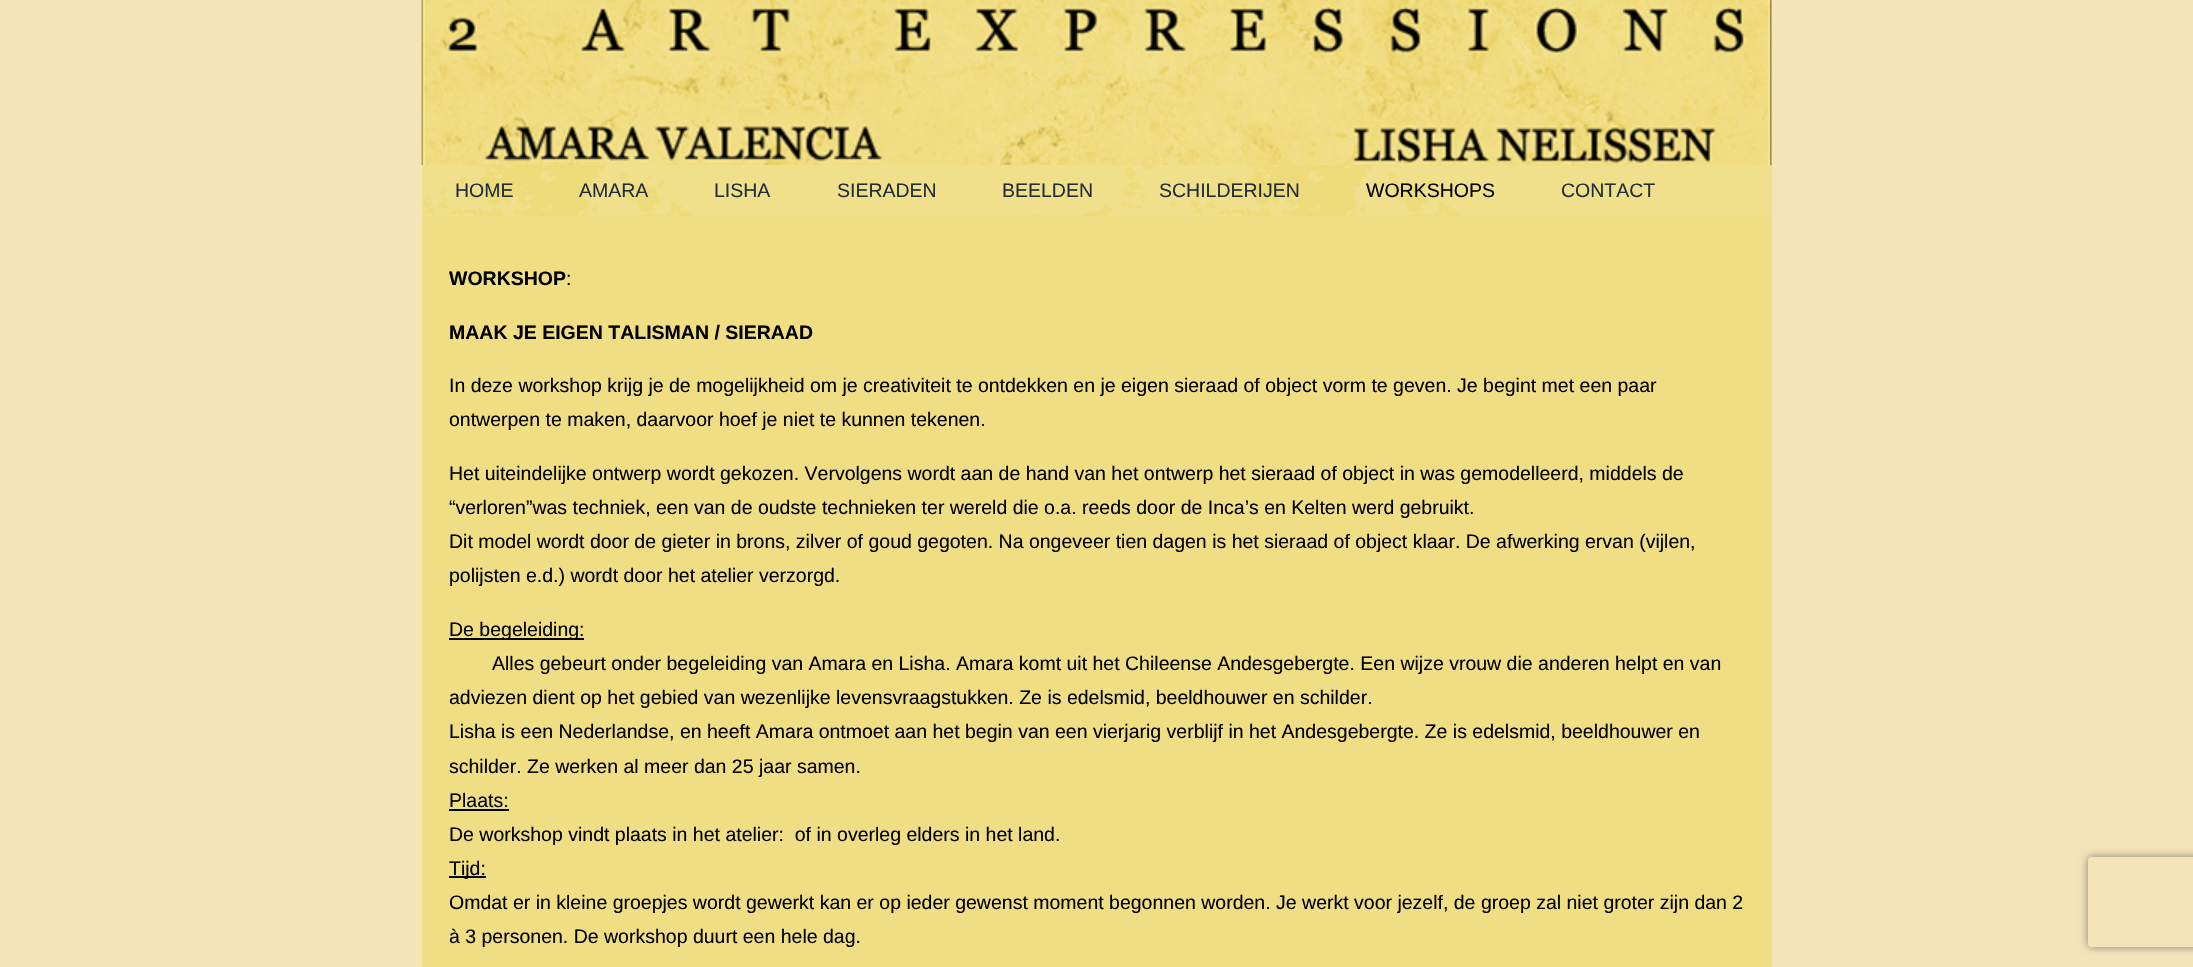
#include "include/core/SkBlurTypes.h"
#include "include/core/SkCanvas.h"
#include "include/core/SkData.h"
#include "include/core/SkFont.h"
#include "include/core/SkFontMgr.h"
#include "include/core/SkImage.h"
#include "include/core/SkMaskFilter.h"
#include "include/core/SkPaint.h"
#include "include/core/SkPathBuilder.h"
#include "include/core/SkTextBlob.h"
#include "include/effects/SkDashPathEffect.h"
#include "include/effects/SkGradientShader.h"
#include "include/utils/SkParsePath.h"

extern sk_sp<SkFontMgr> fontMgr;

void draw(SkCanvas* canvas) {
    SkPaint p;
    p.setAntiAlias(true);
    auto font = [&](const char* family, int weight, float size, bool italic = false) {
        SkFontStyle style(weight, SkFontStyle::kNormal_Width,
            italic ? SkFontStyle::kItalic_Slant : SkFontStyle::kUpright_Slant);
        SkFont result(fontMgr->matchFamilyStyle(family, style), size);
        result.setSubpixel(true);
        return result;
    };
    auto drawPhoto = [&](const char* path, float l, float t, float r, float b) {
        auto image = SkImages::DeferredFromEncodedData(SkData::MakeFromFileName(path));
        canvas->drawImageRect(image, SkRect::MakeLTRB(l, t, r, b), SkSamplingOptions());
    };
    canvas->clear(0xFFF5E4B8);
    drawPhoto("media/1.png", 421, 0, 1772, 165);
    p.setColor(0xFFEFDD80);
    canvas->drawRect(SkRect::MakeLTRB(422, 165, 1772, 216), p);
    drawPhoto("media/2.png", 422, 165, 1772, 216);
    auto font1 = font("Liberation Sans", 400, 19.5f);
    p.setColor(0xFF222E39);
    {
        const struct { const char* s; float x, y; } items[] = {
            {"HOME", 455, 197},
            {"AMARA", 579, 197},
            {"LISHA", 714, 197},
            {"SIERADEN", 837, 197},
            {"BEELDEN", 1002, 197},
            {"SCHILDERIJEN", 1159, 197},
        };
        for (auto [s, x, y] : items) {
            canvas->drawString(s, x, y, font1, p);
        }
    }
    p.setColor(0xFF000000);
    canvas->drawString("WORKSHOPS", 1366, 197, font1, p);
    p.setColor(0xFF222E39);
    canvas->drawString("CONTACT", 1561, 197, font1, p);
    p.setColor(0xFFF0DE84);
    canvas->drawRect(SkRect::MakeLTRB(422, 216, 1772, 967), p);
    auto font2 = font("Liberation Sans", 700, 19.5f);
    p.setColor(0xFF000000);
    canvas->drawString("WORKSHOP", 449, 285, font2, p);
    canvas->drawString(":", 566, 285, font1, p);
    canvas->drawString("MAAK JE EIGEN TALISMAN / SIERAAD", 449, 339, font2, p);
    {
        const struct { const char* s; float x, y; } items[] = {
            {"In deze workshop krijg je de mogelijkheid om je creativiteit te ontdekken en je eigen sieraad of object vorm te geven. Je begint met een paar", 449, 392},
            {"ontwerpen te maken, daarvoor hoef je niet te kunnen tekenen.", 449, 426},
            {"Het uiteindelijke ontwerp wordt gekozen. Vervolgens wordt aan de hand van het ontwerp het sieraad of object in was gemodelleerd, middels de", 449, 480},
            {"“verloren”was techniek, een van de oudste technieken ter wereld die o.a. reeds door de Inca’s en Kelten werd gebruikt.", 449, 514},
            {"Dit model wordt door de gieter in brons, zilver of goud gegoten. Na ongeveer tien dagen is het sieraad of object klaar. De afwerking ervan (vijlen,", 449, 548},
            {"polijsten e.d.) wordt door het atelier verzorgd.", 449, 582},
        };
        for (auto [s, x, y] : items) {
            canvas->drawString(s, x, y, font1, p);
        }
    }
    canvas->drawRect(SkRect::MakeLTRB(449, 638, 584, 640), p);
    {
        const struct { const char* s; float x, y; } items[] = {
            {"De begeleiding:", 449, 636},
            {"Alles gebeurt onder begeleiding van Amara en Lisha. Amara komt uit het Chileense Andesgebergte. Een wijze vrouw die anderen helpt en van", 492, 670},
            {"adviezen dient op het gebied van wezenlijke levensvraagstukken. Ze is edelsmid, beeldhouwer en schilder.", 449, 704},
            {"Lisha is een Nederlandse, en heeft Amara ontmoet aan het begin van een vierjarig verblijf in het Andesgebergte. Ze is edelsmid, beeldhouwer en", 449, 738},
            {"schilder. Ze werken al meer dan 25 jaar samen.", 449, 773},
            {"Plaats:", 449, 807},
        };
        for (auto [s, x, y] : items) {
            canvas->drawString(s, x, y, font1, p);
        }
    }
    canvas->drawRect(SkRect::MakeLTRB(449, 809, 509, 811), p);
    canvas->drawString("De workshop vindt plaats in het atelier:  of in overleg elders in het land.", 449, 841, font1, p);
    canvas->drawRect(SkRect::MakeLTRB(449, 876, 486, 878), p);
    {
        const struct { const char* s; float x, y; } items[] = {
            {"Tijd:", 449, 875},
            {"Omdat er in kleine groepjes wordt gewerkt kan er op ieder gewenst moment begonnen worden. Je werkt voor jezelf, de groep zal niet groter zijn dan 2", 449, 909},
            {"à 3 personen. De workshop duurt een hele dag.", 449, 943},
        };
        for (auto [s, x, y] : items) {
            canvas->drawString(s, x, y, font1, p);
        }
    }
    canvas->save();
    canvas->clipPath(SkPathBuilder(SkPathFillType::kEvenOdd).moveTo(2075, 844).lineTo(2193, 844).lineTo(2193, 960).lineTo(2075, 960).close().moveTo(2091, 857).lineTo(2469, 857).cubicTo(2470.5f, 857, 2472, 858.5f, 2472, 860).lineTo(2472, 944).cubicTo(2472, 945.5f, 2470.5f, 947, 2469, 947).lineTo(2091, 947).cubicTo(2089.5f, 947, 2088, 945.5f, 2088, 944).lineTo(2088, 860).cubicTo(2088, 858.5f, 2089.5f, 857, 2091, 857).close().detach(), true);
    p.setColor(0xFF808080);
    p.setMaskFilter(SkMaskFilter::MakeBlur(kNormal_SkBlurStyle, 4));
    canvas->drawRoundRect(SkRect::MakeLTRB(2088, 857, 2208, 947), 3, 3, p);
    p.setMaskFilter(nullptr);
    canvas->restore();
}
